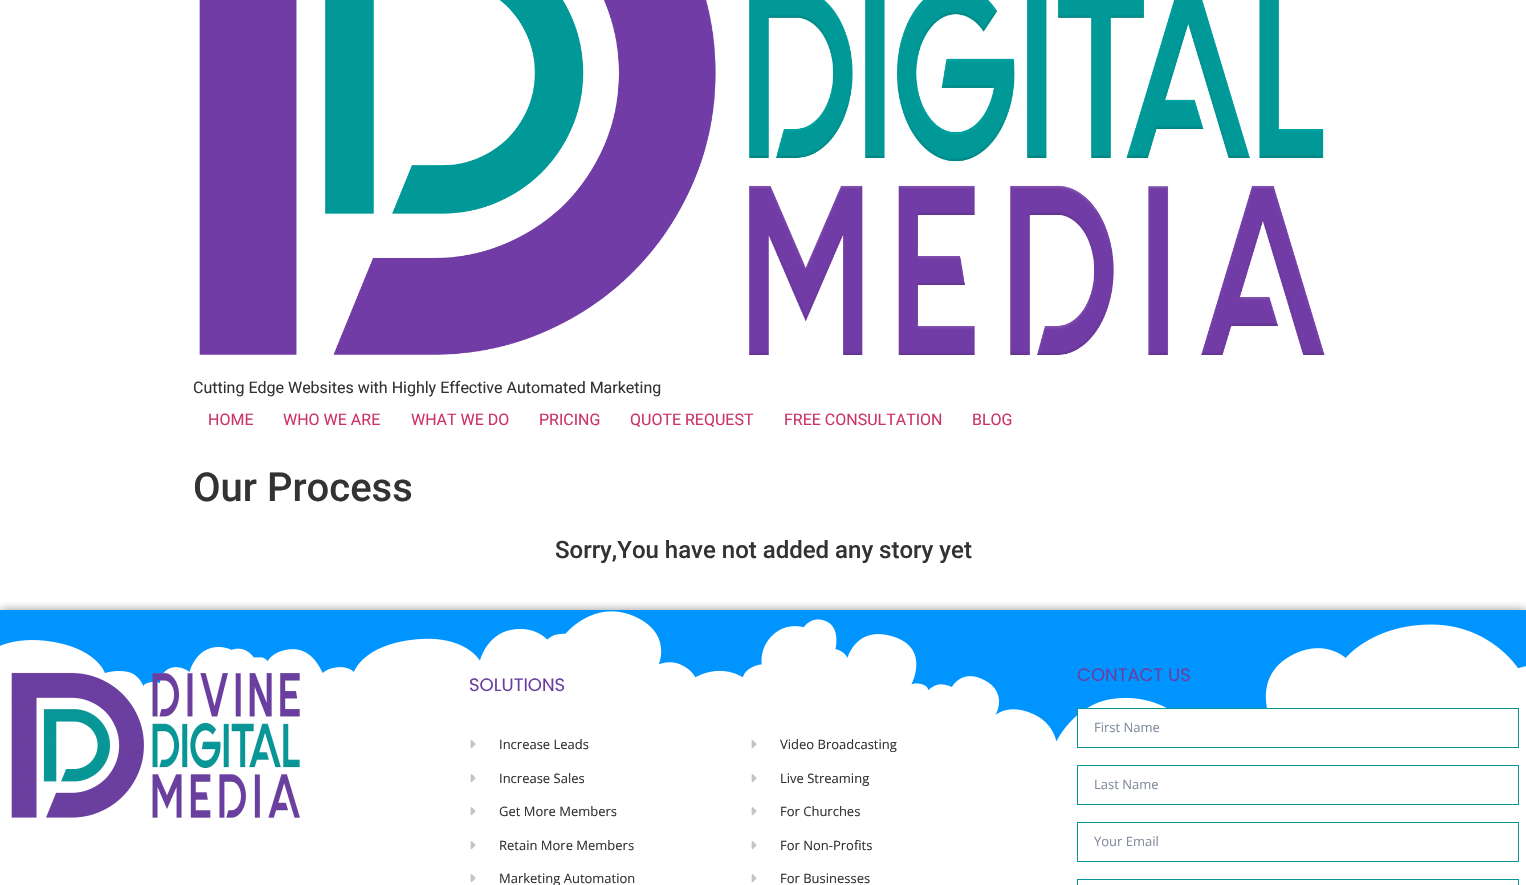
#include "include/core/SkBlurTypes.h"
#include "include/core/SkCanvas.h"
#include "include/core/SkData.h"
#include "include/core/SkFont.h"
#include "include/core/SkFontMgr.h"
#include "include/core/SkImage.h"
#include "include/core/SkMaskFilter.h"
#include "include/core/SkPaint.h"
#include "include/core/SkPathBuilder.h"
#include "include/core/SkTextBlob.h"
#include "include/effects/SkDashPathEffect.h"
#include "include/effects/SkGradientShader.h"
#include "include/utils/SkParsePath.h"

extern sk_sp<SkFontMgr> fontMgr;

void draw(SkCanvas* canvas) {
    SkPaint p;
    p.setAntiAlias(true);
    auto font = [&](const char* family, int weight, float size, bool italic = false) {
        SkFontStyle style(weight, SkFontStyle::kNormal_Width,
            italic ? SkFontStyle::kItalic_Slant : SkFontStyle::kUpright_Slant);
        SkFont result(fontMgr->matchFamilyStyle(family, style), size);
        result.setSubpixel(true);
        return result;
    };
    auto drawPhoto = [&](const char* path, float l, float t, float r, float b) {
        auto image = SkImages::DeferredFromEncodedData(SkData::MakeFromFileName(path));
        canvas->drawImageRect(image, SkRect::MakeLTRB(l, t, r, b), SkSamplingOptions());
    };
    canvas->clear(0xFFFFFFFF);
    drawPhoto("media/1.png", 199, 0, 1325, 355);
    auto font1 = font("Roboto", 400, 16);
    p.setColor(0xFF333333);
    canvas->drawString("Cutting Edge Websites with Highly Effective Automated Marketing", 193, 393, font1, p);
    p.setColor(0xFFCC3366);
    {
        const struct { const char* s; float x, y; } items[] = {
            {"HOME", 208, 425},
            {"WHO WE ARE", 283, 425},
            {"WHAT WE DO", 411, 425},
            {"PRICING", 539, 425},
            {"QUOTE REQUEST", 630, 425},
            {"FREE CONSULTATION", 784, 425},
            {"BLOG", 972, 425},
        };
        for (auto [s, x, y] : items) {
            canvas->drawString(s, x, y, font1, p);
        }
    }
    auto font2 = font("Roboto", 500, 40);
    p.setColor(0xFF333333);
    canvas->drawString("Our Process", 193, 501, font2, p);
    auto font3 = font("Roboto", 500, 24);
    canvas->drawString("Sorry,You have not added any story yet", 555, 558, font3, p);
    canvas->save();
    canvas->clipRect(SkRect::MakeLTRB(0, 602, 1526, 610));
    p.setColor(0x80000000);
    p.setMaskFilter(SkMaskFilter::MakeBlur(kNormal_SkBlurStyle, 5));
    canvas->drawRect(SkRect::MakeLTRB(0, 611, 1526, 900), p);
    p.setMaskFilter(nullptr);
    canvas->restore();
    drawPhoto("media/2.png", 0, 610, 1526, 742);
    drawPhoto("media/3.png", 11, 672, 300, 818);
    auto font4 = font("Poppins", 400, 18);
    p.setColor(0xFF6B3FA0);
    canvas->drawString("SOLUTIONS", 469, 691, font4, p);
    drawPhoto("media/4.png", 470, 740, 476, 749);
    auto font5 = font("Open Sans", 400, 13);
    p.setColor(0xFF333333);
    canvas->drawString("Increase Leads", 499, 749, font5, p);
    drawPhoto("media/4.png", 470, 774, 476, 783);
    canvas->drawString("Increase Sales", 499, 783, font5, p);
    drawPhoto("media/4.png", 470, 807, 476, 816);
    canvas->drawString("Get More Members", 499, 816, font5, p);
    drawPhoto("media/4.png", 470, 841, 476, 850);
    canvas->drawString("Retain More Members", 499, 850, font5, p);
    drawPhoto("media/4.png", 470, 874, 476, 883);
    canvas->drawString("Marketing Automation", 499, 883, font5, p);
    drawPhoto("media/4.png", 751, 740, 757, 749);
    canvas->drawString("Video Broadcasting", 780, 749, font5, p);
    drawPhoto("media/4.png", 751, 774, 757, 783);
    canvas->drawString("Live Streaming", 780, 783, font5, p);
    drawPhoto("media/4.png", 751, 807, 757, 816);
    canvas->drawString("For Churches", 780, 816, font5, p);
    drawPhoto("media/4.png", 751, 841, 757, 850);
    canvas->drawString("For Non-Profits", 780, 850, font5, p);
    drawPhoto("media/4.png", 751, 874, 757, 883);
    canvas->drawString("For Businesses", 780, 883, font5, p);
    p.setColor(0xFF6B3FA0);
    canvas->drawString("CONTACT US", 1077, 681, font4, p);
    p.setColor(0xFFFFFFFF);
    canvas->drawRect(SkRect::MakeLTRB(1078, 709, 1273, 742), p);
    p.setStyle(SkPaint::kStroke_Style);
    p.setStrokeWidth(1);
    p.setColor(0xFF089696);
    canvas->drawRect(SkRect::MakeLTRB(1077.5f, 708.5f, 1518.5f, 747.5f), p);
    p.setStyle(SkPaint::kFill_Style);
    p.setColor(0xFF838D9E);
    canvas->drawString("First Name", 1094, 732, font5, p);
    p.setStyle(SkPaint::kStroke_Style);
    p.setColor(0xFF089696);
    canvas->drawRect(SkRect::MakeLTRB(1077.5f, 765.5f, 1518.5f, 804.5f), p);
    p.setStyle(SkPaint::kFill_Style);
    p.setColor(0xFF838D9E);
    canvas->drawString("Last Name", 1094, 789, font5, p);
    p.setStyle(SkPaint::kStroke_Style);
    p.setColor(0xFF089696);
    canvas->drawRect(SkRect::MakeLTRB(1077.5f, 822.5f, 1518.5f, 861.5f), p);
    p.setStyle(SkPaint::kFill_Style);
    p.setColor(0xFF838D9E);
    canvas->drawString("Your Email", 1094, 846, font5, p);
    p.setStyle(SkPaint::kStroke_Style);
    p.setColor(0xFF089696);
    canvas->drawRect(SkRect::MakeLTRB(1077.5f, 879.5f, 1518.5f, 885.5f), p);
}
